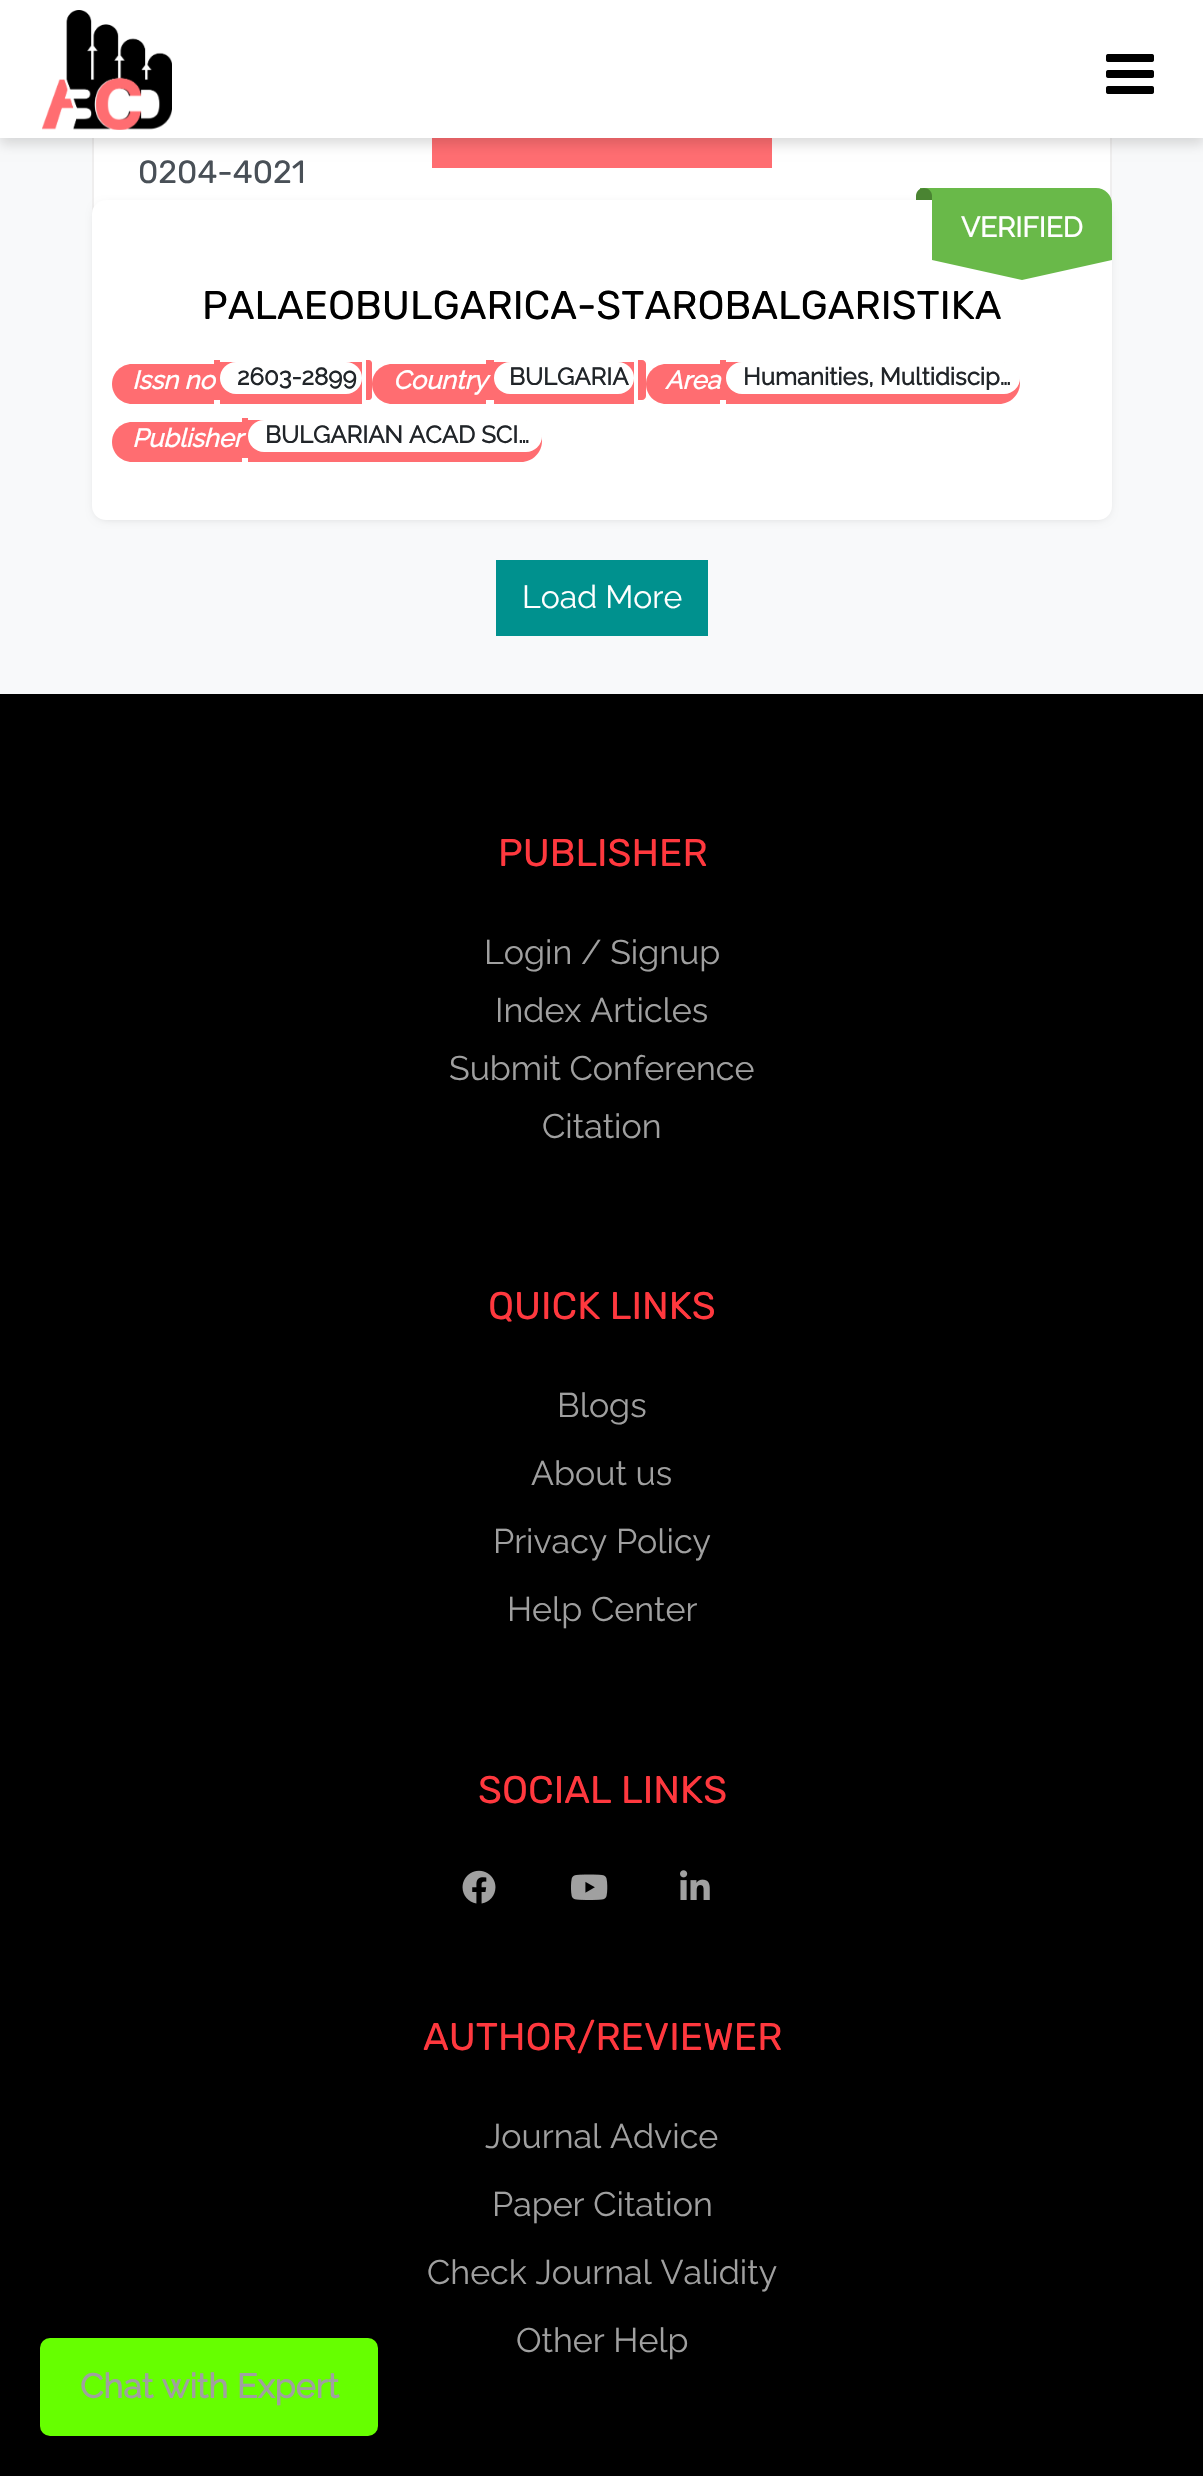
#include "include/core/SkBlurTypes.h"
#include "include/core/SkCanvas.h"
#include "include/core/SkData.h"
#include "include/core/SkFont.h"
#include "include/core/SkFontMgr.h"
#include "include/core/SkImage.h"
#include "include/core/SkMaskFilter.h"
#include "include/core/SkPaint.h"
#include "include/core/SkPathBuilder.h"
#include "include/core/SkTextBlob.h"
#include "include/effects/SkDashPathEffect.h"
#include "include/effects/SkGradientShader.h"
#include "include/utils/SkParsePath.h"

extern sk_sp<SkFontMgr> fontMgr;

void draw(SkCanvas* canvas) {
    SkPaint p;
    p.setAntiAlias(true);
    auto font = [&](const char* family, int weight, float size, bool italic = false) {
        SkFontStyle style(weight, SkFontStyle::kNormal_Width,
            italic ? SkFontStyle::kItalic_Slant : SkFontStyle::kUpright_Slant);
        SkFont result(fontMgr->matchFamilyStyle(family, style), size);
        result.setSubpixel(true);
        return result;
    };
    auto drawPhoto = [&](const char* path, float l, float t, float r, float b) {
        auto image = SkImages::DeferredFromEncodedData(SkData::MakeFromFileName(path));
        canvas->drawImageRect(image, SkRect::MakeLTRB(l, t, r, b), SkSamplingOptions());
    };
    canvas->clear(0xFFF8F9FA);
    p.setColor(0xFFFFFFFF);
    canvas->drawRect(SkRect::MakeLTRB(94, 138, 1110, 207), p);
    p.setStyle(SkPaint::kStroke_Style);
    p.setStrokeWidth(2);
    p.setColor(0xFFEFEEEE);
    canvas->drawRect(SkRect::MakeLTRB(93, -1, 1111, 339), p);
    p.setStyle(SkPaint::kFill_Style);
    p.setColor(0xFFFF6D71);
    canvas->drawRect(SkRect::MakeLTRB(432, 138, 772, 168), p);
    p.setColor(0x24000000);
    p.setMaskFilter(SkMaskFilter::MakeBlur(kNormal_SkBlurStyle, 6));
    canvas->drawRect(SkRect::MakeLTRB(0, 6, 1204, 144), p);
    p.setMaskFilter(nullptr);
    p.setColor(0xFFFFFFFF);
    canvas->drawRect(SkRect::MakeLTRB(0, 0, 1203, 138), p);
    drawPhoto("media/1.png", 42, 10, 172, 130);
    drawPhoto("media/2.png", 1106, 54, 1154, 94);
    auto font1 = font("Rubik", 400, 32);
    p.setColor(0xFF495057);
    canvas->drawString("0204-4021", 138, 183, font1, p);
    p.setColor(0x2B000000);
    p.setMaskFilter(SkMaskFilter::MakeBlur(kNormal_SkBlurStyle, 5));
    canvas->drawRoundRect(SkRect::MakeLTRB(96, 206, 1108, 518), 10, 10, p);
    p.setMaskFilter(nullptr);
    p.setColor(0xFFFFFFFF);
    canvas->drawRoundRect(SkRect::MakeLTRB(92, 200, 1112, 520), 14, 14, p);
    p.setColor(0xFF69B949);
    canvas->drawPath(SkPathBuilder().moveTo(932, 188).lineTo(1096, 188).cubicTo(1105, 188, 1112, 195, 1112, 204).lineTo(1112, 260).lineTo(932, 260).close().detach(), p);
    canvas->drawRect(SkRect::MakeLTRB(920, 188, 932, 196), p);
    p.setColor(0xFF4A8432);
    canvas->drawPath(SkPathBuilder().moveTo(924, 188).cubicTo(928.5f, 188, 932, 191.5f, 932, 196).lineTo(932, 200).lineTo(916, 200).lineTo(916, 196).cubicTo(916, 191.5f, 919.5f, 188, 924, 188).close().detach(), p);
    auto font2 = font("Raleway", 700, 28);
    p.setColor(0xFFFFFFFF);
    canvas->drawString("VERIFIED", 961, 237, font2, p);
    p.setColor(0xFF69B949);
    canvas->drawPath(SkPathBuilder().moveTo(932, 260).lineTo(1112, 260).lineTo(1022, 280).close().detach(), p);
    auto font3 = font("Rubik", 400, 40);
    p.setColor(0xFF000000);
    canvas->drawString("PALAEOBULGARICA-STAROBALGARISTIKA", 202, 319, font3, p);
    p.setColor(0xFFFF6D71);
    canvas->drawPath(SkPathBuilder().moveTo(132, 364).lineTo(214, 364).lineTo(214, 404).lineTo(132, 404).cubicTo(121, 404, 112, 395, 112, 384).cubicTo(112, 373, 121, 364, 132, 364).close().detach(), p);
    canvas->drawRect(SkRect::MakeLTRB(214, 360, 220, 400), p);
    canvas->drawRect(SkRect::MakeLTRB(220, 362, 362, 404), p);
    canvas->drawPath(SkPathBuilder().moveTo(366, 360).lineTo(369, 360).cubicTo(370.5f, 360, 372, 361.5f, 372, 363).lineTo(372, 397).cubicTo(372, 398.5f, 370.5f, 400, 369, 400).lineTo(366, 400).close().detach(), p);
    auto font4 = font("Raleway", 700, 25.5f, true);
    p.setColor(0xFFFFFFFF);
    canvas->drawString("Issn no", 132, 389, font4, p);
    canvas->drawRoundRect(SkRect::MakeLTRB(220, 362, 362, 394), 16, 16, p);
    auto font5 = font("Raleway", 700, 24);
    p.setColor(0xFF212529);
    canvas->drawString("2603-2899", 237, 385, font5, p);
    p.setColor(0xFFFF6D71);
    canvas->drawPath(SkPathBuilder().moveTo(392, 364).lineTo(486, 364).lineTo(486, 404).lineTo(392, 404).cubicTo(381, 404, 372, 395, 372, 384).cubicTo(372, 373, 381, 364, 392, 364).close().detach(), p);
    canvas->drawRect(SkRect::MakeLTRB(486, 360, 494, 400), p);
    canvas->drawRect(SkRect::MakeLTRB(494, 362, 634, 404), p);
    canvas->drawPath(SkPathBuilder().moveTo(638, 360).lineTo(642, 360).cubicTo(644, 360, 646, 362, 646, 364).lineTo(646, 396).cubicTo(646, 398, 644, 400, 642, 400).lineTo(638, 400).close().detach(), p);
    p.setColor(0xFFFFFFFF);
    canvas->drawString("Country", 393, 389, font4, p);
    canvas->drawRoundRect(SkRect::MakeLTRB(494, 362, 634, 394), 16, 16, p);
    p.setColor(0xFF212529);
    canvas->drawString("BULGARIA", 509, 385, font5, p);
    p.setColor(0xFFFF6D71);
    canvas->drawPath(SkPathBuilder().moveTo(666, 364).lineTo(720, 364).lineTo(720, 404).lineTo(666, 404).cubicTo(655, 404, 646, 395, 646, 384).cubicTo(646, 373, 655, 364, 666, 364).close().detach(), p);
    canvas->drawRect(SkRect::MakeLTRB(720, 360, 726, 400), p);
    canvas->drawPath(SkPathBuilder().moveTo(726, 362).lineTo(999, 362).cubicTo(1010.5f, 362, 1020, 371.5f, 1020, 383).cubicTo(1020, 394.5f, 1010.5f, 404, 999, 404).lineTo(726, 404).close().detach(), p);
    p.setColor(0xFFFFFFFF);
    canvas->drawString("Area", 665, 389, font4, p);
    canvas->drawRoundRect(SkRect::MakeLTRB(726, 362, 1020, 394), 16, 16, p);
    p.setColor(0xFF212529);
    canvas->drawString("Humanities, Multidiscip…", 743, 385, font5, p);
    p.setColor(0xFFFF6D71);
    canvas->drawPath(SkPathBuilder().moveTo(132, 422).lineTo(242, 422).lineTo(242, 462).lineTo(132, 462).cubicTo(121, 462, 112, 453, 112, 442).cubicTo(112, 431, 121, 422, 132, 422).close().detach(), p);
    canvas->drawRect(SkRect::MakeLTRB(242, 418, 248, 458), p);
    canvas->drawPath(SkPathBuilder().moveTo(248, 420).lineTo(521, 420).cubicTo(532.5f, 420, 542, 429.5f, 542, 441).cubicTo(542, 452.5f, 532.5f, 462, 521, 462).lineTo(248, 462).close().detach(), p);
    p.setColor(0xFFFFFFFF);
    canvas->drawString("Publisher", 132, 447, font4, p);
    canvas->drawRoundRect(SkRect::MakeLTRB(248, 420, 542, 452), 16, 16, p);
    p.setColor(0xFF212529);
    canvas->drawString("BULGARIAN ACAD SCI…", 265, 443, font5, p);
    p.setColor(0xFF00918E);
    canvas->drawRect(SkRect::MakeLTRB(496, 560, 708, 636), p);
    auto font6 = font("Raleway", 100, 32);
    p.setColor(0xFFFFFFFF);
    canvas->drawString("Load More", 522, 608, font6, p);
    p.setColor(0xFF000000);
    canvas->drawRect(SkRect::MakeLTRB(0, 694, 1203, 2476), p);
    auto font7 = font("Rubik", 400, 38.5f);
    p.setColor(0xFFFF383E);
    canvas->drawString("PUBLISHER", 498, 866, font7, p);
    auto font8 = font("Raleway", 100, 34);
    p.setColor(0xFFA0A0A0);
    {
        const struct { const char* s; float x, y; } items[] = {
            {"Login / Signup", 484, 964},
            {"Index Articles", 495, 1022},
            {"Submit Conference", 449, 1080},
            {"Citation", 542, 1138},
        };
        for (auto [s, x, y] : items) {
            canvas->drawString(s, x, y, font8, p);
        }
    }
    p.setColor(0xFFFF383E);
    canvas->drawString("QUICK LINKS", 488, 1319, font7, p);
    p.setColor(0xFFA0A0A0);
    {
        const struct { const char* s; float x, y; } items[] = {
            {"Blogs", 557, 1417},
            {"About us", 531, 1485},
            {"Privacy Policy", 493, 1553},
            {"Help Center", 507, 1621},
        };
        for (auto [s, x, y] : items) {
            canvas->drawString(s, x, y, font8, p);
        }
    }
    p.setColor(0xFFFF383E);
    canvas->drawString("SOCIAL LINKS", 478, 1803, font7, p);
    drawPhoto("media/3.png", 462, 1870, 496, 1904);
    drawPhoto("media/4.png", 571, 1874, 608, 1900);
    drawPhoto("media/5.png", 680, 1870, 710, 1900);
    canvas->drawString("AUTHOR/REVIEWER", 423, 2050, font7, p);
    p.setColor(0xFFA0A0A0);
    {
        const struct { const char* s; float x, y; } items[] = {
            {"Journal Advice", 485, 2148},
            {"Paper Citation", 492, 2216},
            {"Check Journal Validity", 427, 2284},
            {"Other Help", 516, 2352},
        };
        for (auto [s, x, y] : items) {
            canvas->drawString(s, x, y, font8, p);
        }
    }
    p.setColor(0xFF66FF00);
    canvas->drawRoundRect(SkRect::MakeLTRB(40, 2338, 378, 2436), 10, 10, p);
    auto font9 = font("Raleway", 700, 34);
    p.setColor(0xFFA0A0A0);
    canvas->drawString("Chat with Expert", 80, 2398, font9, p);
}
